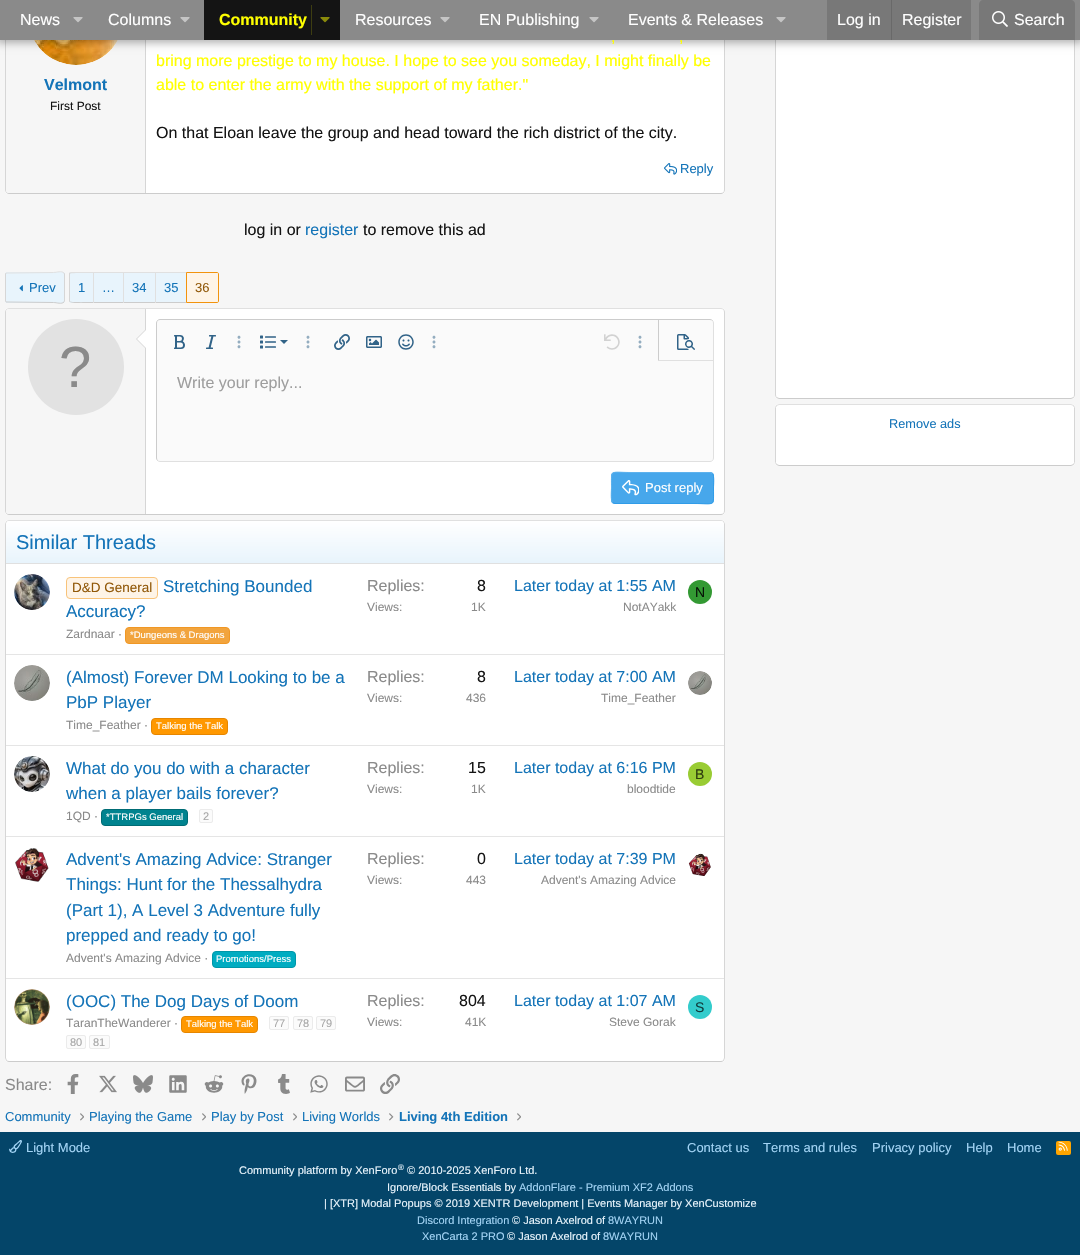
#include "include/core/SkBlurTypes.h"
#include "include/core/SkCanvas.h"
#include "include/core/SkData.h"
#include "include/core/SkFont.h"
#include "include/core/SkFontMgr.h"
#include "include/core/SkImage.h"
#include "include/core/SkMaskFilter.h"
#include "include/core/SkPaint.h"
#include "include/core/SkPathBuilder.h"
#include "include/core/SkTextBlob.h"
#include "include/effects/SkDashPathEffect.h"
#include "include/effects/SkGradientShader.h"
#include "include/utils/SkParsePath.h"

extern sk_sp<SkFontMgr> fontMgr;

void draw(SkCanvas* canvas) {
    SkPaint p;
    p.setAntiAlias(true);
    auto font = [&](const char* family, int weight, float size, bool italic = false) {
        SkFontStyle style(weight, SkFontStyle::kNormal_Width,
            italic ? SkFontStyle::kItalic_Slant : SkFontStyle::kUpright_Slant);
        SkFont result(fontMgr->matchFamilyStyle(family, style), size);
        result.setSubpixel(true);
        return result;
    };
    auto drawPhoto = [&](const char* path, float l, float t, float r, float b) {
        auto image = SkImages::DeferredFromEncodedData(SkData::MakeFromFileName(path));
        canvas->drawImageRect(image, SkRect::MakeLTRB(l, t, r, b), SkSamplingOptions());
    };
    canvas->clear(0xFFF6F6F6);
    p.setColor(0xFFFFFFFF);
    canvas->drawRoundRect(SkRect::MakeLTRB(5, -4, 725, 194), 4, 4, p);
    p.setStyle(SkPaint::kStroke_Style);
    p.setStrokeWidth(1);
    p.setColor(0xFFD6D6D6);
    canvas->drawPath(SkPathBuilder().moveTo(723.5f, -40.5f).cubicTo(724, -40, 724.5f, -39, 724.5f, -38).lineTo(724.5f, 190).cubicTo(724.5f, 191, 724, 192, 723.5f, 192.5f).detach(), p);
    p.setColor(0xFFCCCCCC);
    canvas->drawPath(SkPathBuilder().moveTo(723.5f, 192.5f).cubicTo(723, 193, 722, 193.5f, 721, 193.5f).lineTo(9, 193.5f).cubicTo(8, 193.5f, 7, 193, 6.5f, 192.5f).detach(), p);
    p.setColor(0xFFD6D6D6);
    canvas->drawPath(SkPathBuilder().moveTo(6.5f, 192.5f).cubicTo(6, 192, 5.5f, 191, 5.5f, 190).lineTo(5.5f, -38).cubicTo(5.5f, -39, 6, -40, 6.5f, -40.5f).detach(), p);
    p.setStyle(SkPaint::kFill_Style);
    p.setColor(0xFFF6F6F6);
    canvas->drawPath(SkPathBuilder().moveTo(9, -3).lineTo(146, -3).lineTo(146, 193).lineTo(9, 193).cubicTo(7.5f, 193, 6, 191.5f, 6, 190).lineTo(6, 0).cubicTo(6, -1.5f, 7.5f, -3, 9, -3).close().detach(), p);
    p.setColor(0xFFD6D6D6);
    canvas->drawRect(SkRect::MakeLTRB(145, 40, 146, 193), p);
    p.setColor(0xFFFFFFFF);
    canvas->drawCircle(76, 17, 48, p);
    drawPhoto("media/4.png", 34, 40, 118, 65);
    canvas->drawRoundRect(SkRect::MakeLTRB(775, -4, 1075, 399), 4, 4, p);
    p.setStyle(SkPaint::kStroke_Style);
    p.setColor(0xFFD6D6D6);
    canvas->drawPath(SkPathBuilder().moveTo(1073.5f, -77.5f).cubicTo(1074, -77, 1074.5f, -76, 1074.5f, -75).lineTo(1074.5f, 395).cubicTo(1074.5f, 396, 1074, 397, 1073.5f, 397.5f).detach(), p);
    p.setColor(0xFFCCCCCC);
    canvas->drawPath(SkPathBuilder().moveTo(1073.5f, 397.5f).lineTo(1071, 398.5f).lineTo(779, 398.5f).lineTo(776.5f, 397.5f).detach(), p);
    p.setColor(0xFFD6D6D6);
    canvas->drawPath(SkPathBuilder().moveTo(776.5f, 397.5f).cubicTo(776, 397, 775.5f, 396, 775.5f, 395).lineTo(775.5f, -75).cubicTo(775.5f, -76, 776, -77, 776.5f, -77.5f).detach(), p);
    p.setStyle(SkPaint::kFill_Style);
    p.setColor(0x4D000000);
    p.setMaskFilter(SkMaskFilter::MakeBlur(kNormal_SkBlurStyle, 4));
    canvas->drawRect(SkRect::MakeLTRB(-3, -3, 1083, 43), p);
    p.setMaskFilter(nullptr);
    p.setColor(0xFF8A8A8A);
    canvas->drawRect(SkRect::MakeLTRB(0, 0, 1080, 40), p);
    auto font1 = font("Liberation Sans", 400, 16);
    p.setColor(0xFFFFFFFF);
    canvas->drawString("News", 20, 25, font1, p);
    drawPhoto("media/1.png", 73, 17, 83, 23);
    canvas->drawString("Columns", 108, 25, font1, p);
    drawPhoto("media/1.png", 180, 17, 190, 23);
    p.setColor(0xFF141414);
    canvas->drawRect(SkRect::MakeLTRB(204, 0, 340, 40), p);
    auto font2 = font("Liberation Sans", 700, 16);
    p.setColor(0xFFFFFF00);
    canvas->drawString("Community", 219, 25, font2, p);
    p.setColor(0xFF3D3D11);
    canvas->drawRect(SkRect::MakeLTRB(311, 5, 312, 35), p);
    drawPhoto("media/2.png", 320, 17, 330, 23);
    p.setColor(0xFFFFFFFF);
    canvas->drawString("Resources", 355, 25, font1, p);
    drawPhoto("media/1.png", 440, 17, 450, 23);
    canvas->drawString("EN Publishing", 479, 25, font1, p);
    drawPhoto("media/1.png", 589, 17, 599, 23);
    canvas->drawString("Events & Releases", 628, 25, font1, p);
    drawPhoto("media/1.png", 776, 17, 786, 23);
    p.setColor(0xFF787878);
    canvas->drawRect(SkRect::MakeLTRB(827, 0, 971, 40), p);
    p.setColor(0xFFFFFFFF);
    canvas->drawString("Log in", 837, 25, font1, p);
    p.setColor(0xFF696969);
    canvas->drawRect(SkRect::MakeLTRB(891, 0, 892, 40), p);
    p.setColor(0xFFFFFFFF);
    canvas->drawString("Register", 902, 25, font1, p);
    p.setColor(0xFF787878);
    canvas->drawPath(SkPathBuilder().moveTo(983, 0).lineTo(1071, 0).cubicTo(1073, 0, 1075, 2, 1075, 4).lineTo(1075, 40).lineTo(979, 40).lineTo(979, 4).cubicTo(979, 2, 981, 0, 983, 0).close().detach(), p);
    drawPhoto("media/3.png", 992, 11, 1008, 27);
    p.setColor(0xFFFFFFFF);
    canvas->drawString("Search", 1014, 25, font1, p);
    p.setColor(0xFF1474B8);
    canvas->drawString("Velmont", 44, 90, font2, p);
    auto font3 = font("Liberation Sans", 400, 12);
    p.setColor(0xFF141414);
    canvas->drawString("First Post", 50, 110, font3, p);
    p.setColor(0xFFFFFF00);
    {
        const struct { const char* s; float x, y; } items[] = {
            {",", 611, 42},
            {",", 679, 42},
            {"bring more prestige to my house. I hope to see you someday, I might finally be", 156, 66},
            {"able to enter the army with the support of my father.\"", 156, 90},
        };
        for (auto [s, x, y] : items) {
            canvas->drawString(s, x, y, font1, p);
        }
    }
    p.setColor(0xFF141414);
    canvas->drawString("On that Eloan leave the group and head toward the rich district of the city.", 156, 138, font1, p);
    drawPhoto("media/5.png", 664, 163, 677, 175);
    auto font4 = font("Liberation Sans", 400, 13);
    p.setColor(0xFF1474B8);
    canvas->drawString("Reply", 680, 173, font4, p);
    p.setColor(0xFF141414);
    canvas->drawString("log in or", 244, 235, font1, p);
    p.setColor(0xFF1474B8);
    canvas->drawString("register", 305, 235, font1, p);
    p.setColor(0xFF141414);
    canvas->drawString("to remove this ad", 363, 235, font1, p);
    p.setColor(0xFFE8F4FC);
    canvas->drawRoundRect(SkRect::MakeLTRB(5, 272, 65, 303), 2, 2, p);
    p.setStyle(SkPaint::kStroke_Style);
    p.setColor(0xFFE0E0E0);
    canvas->drawPath(SkPathBuilder().moveTo(6, 273).lineTo(53.5f, 272.5f).cubicTo(57, 272.5f, 61.5f, 270.5f, 64, 273).detach(), p);
    p.setColor(0xFFD6D6D6);
    canvas->drawPath(SkPathBuilder().moveTo(64, 273).lineTo(64.5f, 274).lineTo(64.5f, 301).lineTo(64, 302).detach(), p);
    p.setColor(0xFFCCCCCC);
    canvas->drawPath(SkPathBuilder().moveTo(64, 302).cubicTo(61.5f, 304.5f, 57, 302.5f, 53.5f, 302.5f).lineTo(6, 302).detach(), p);
    p.setColor(0xFFD6D6D6);
    canvas->drawPath(SkPathBuilder().moveTo(6, 302).lineTo(5.5f, 301).lineTo(5.5f, 274).lineTo(6, 273).detach(), p);
    drawPhoto("media/6.png", 19, 285, 23, 292);
    p.setStyle(SkPaint::kFill_Style);
    p.setColor(0xFF1474B8);
    canvas->drawString("Prev", 29, 292, font4, p);
    p.setColor(0xFFE8F4FC);
    canvas->drawPath(SkPathBuilder().moveTo(71, 272).lineTo(93, 272).lineTo(93, 303).lineTo(71, 303).cubicTo(70, 303, 69, 302, 69, 301).lineTo(69, 274).cubicTo(69, 273, 70, 272, 71, 272).close().detach(), p);
    p.setColor(0xFFE0E0E0);
    canvas->drawPath(SkPathBuilder().moveTo(71, 272).lineTo(69.5f, 272.5f).lineTo(70.5f, 273.5f).cubicTo(71, 272.5f, 90.5f, 273, 93, 273).lineTo(93, 272).close().detach(), p);
    p.setColor(0xFFCCCCCC);
    canvas->drawPath(SkPathBuilder().moveTo(93, 303).cubicTo(90, 303, 71, 303.5f, 70, 302).lineTo(70.5f, 301.5f).cubicTo(71, 302.5f, 90.5f, 302, 93, 302).close().detach(), p);
    p.setColor(0xFFD6D6D6);
    canvas->drawPath(SkPathBuilder().moveTo(69, 273.5f).lineTo(69, 301.5f).lineTo(70, 302).lineTo(70.5f, 301.5f).lineTo(70, 301).lineTo(70, 274).lineTo(70.5f, 273.5f).lineTo(69.5f, 272.5f).close().detach(), p);
    p.setColor(0xFF1474B8);
    canvas->drawString("1", 78, 292, font4, p);
    {
        const struct { float l, t, r, b; SkColor color; } items[] = {
            {94, 273, 123, 302, 0xFFE8F4FC},
            {93, 272, 186, 273, 0xFFE0E0E0},
            {93, 302, 186, 303, 0xFFCCCCCC},
            {93, 272, 94, 303, 0xFFE0E0E0},
        };
        for (auto [l, t, r, b, color] : items) {
            p.setColor(color);
            canvas->drawRect(SkRect::MakeLTRB(l, t, r, b), p);
        }
    }
    p.setColor(0xFF1474B8);
    canvas->drawString("…", 102, 292, font4, p);
    p.setColor(0xFFE8F4FC);
    canvas->drawRect(SkRect::MakeLTRB(124, 273, 155, 302), p);
    p.setColor(0xFFE0E0E0);
    canvas->drawRect(SkRect::MakeLTRB(123, 272, 124, 303), p);
    p.setColor(0xFF1474B8);
    canvas->drawString("34", 132, 292, font4, p);
    p.setColor(0xFFE8F4FC);
    canvas->drawRect(SkRect::MakeLTRB(156, 273, 186, 302), p);
    p.setColor(0xFFE0E0E0);
    canvas->drawRect(SkRect::MakeLTRB(155, 272, 156, 303), p);
    p.setColor(0xFF1474B8);
    canvas->drawString("35", 164, 292, font4, p);
    p.setColor(0xFFFEF4E7);
    canvas->drawPath(SkPathBuilder().moveTo(186.5f, 272.5f).lineTo(217, 272.5f).cubicTo(218, 272.5f, 218.5f, 273, 218.5f, 274).lineTo(218.5f, 301).cubicTo(218.5f, 302, 218, 302.5f, 217, 302.5f).lineTo(186.5f, 302.5f).close().detach(), p);
    p.setStyle(SkPaint::kStroke_Style);
    p.setColor(0xFFF2930D);
    canvas->drawPath(SkPathBuilder().moveTo(186.5f, 272.5f).lineTo(217, 272.5f).cubicTo(218, 272.5f, 218.5f, 273, 218.5f, 274).lineTo(218.5f, 301).cubicTo(218.5f, 302, 218, 302.5f, 217, 302.5f).lineTo(186.5f, 302.5f).close().detach(), p);
    p.setStyle(SkPaint::kFill_Style);
    p.setColor(0xFF915808);
    canvas->drawString("36", 195, 292, font4, p);
    p.setColor(0xFFFFFFFF);
    canvas->drawRoundRect(SkRect::MakeLTRB(5, 308, 725, 515), 4, 4, p);
    p.setStyle(SkPaint::kStroke_Style);
    p.setColor(0xFFE0E0E0);
    canvas->drawPath(SkPathBuilder().moveTo(6.5f, 309.5f).cubicTo(7, 309, 8, 308.5f, 9, 308.5f).lineTo(721, 308.5f).cubicTo(722, 308.5f, 723, 309, 723.5f, 309.5f).detach(), p);
    p.setColor(0xFFD6D6D6);
    canvas->drawPath(SkPathBuilder().moveTo(723.5f, 309.5f).cubicTo(724, 310, 724.5f, 311, 724.5f, 312).lineTo(724.5f, 511).cubicTo(724.5f, 512, 724, 513, 723.5f, 513.5f).detach(), p);
    p.setColor(0xFFCCCCCC);
    canvas->drawPath(SkPathBuilder().moveTo(723.5f, 513.5f).cubicTo(723, 514, 722, 514.5f, 721, 514.5f).lineTo(9, 514.5f).cubicTo(8, 514.5f, 7, 514, 6.5f, 513.5f).detach(), p);
    p.setColor(0xFFD6D6D6);
    canvas->drawPath(SkPathBuilder().moveTo(6.5f, 513.5f).cubicTo(6, 513, 5.5f, 512, 5.5f, 511).lineTo(5.5f, 312).cubicTo(5.5f, 311, 6, 310, 6.5f, 309.5f).detach(), p);
    p.setStyle(SkPaint::kFill_Style);
    p.setColor(0xFFF6F6F6);
    canvas->drawPath(SkPathBuilder().moveTo(9, 309).lineTo(146, 309).lineTo(146, 514).lineTo(9, 514).cubicTo(7.5f, 514, 6, 512.5f, 6, 511).lineTo(6, 312).cubicTo(6, 310.5f, 7.5f, 309, 9, 309).close().detach(), p);
    p.setColor(0xFFD6D6D6);
    canvas->drawRect(SkRect::MakeLTRB(145, 309, 146, 514), p);
    canvas->drawPath(SkPathBuilder().moveTo(146, 329).lineTo(146, 349).lineTo(136, 339).close().detach(), p);
    p.setColor(0xFFFFFFFF);
    canvas->drawPath(SkPathBuilder().moveTo(146, 330).lineTo(146, 348).lineTo(137, 339).close().detach(), p);
    p.setColor(0xFFE2E2E2);
    canvas->drawCircle(76, 367, 48, p);
    auto font5 = font("Liberation Sans", 400, 58);
    p.setColor(0xFF8A8A8A);
    canvas->drawString("?", 59, 387, font5, p);
    p.setColor(0xFFFAFAFA);
    canvas->drawRoundRect(SkRect::MakeLTRB(157, 320, 713, 461), 3, 3, p);
    p.setStyle(SkPaint::kStroke_Style);
    p.setColor(0xFFE0E0E0);
    canvas->drawPath(SkPathBuilder().moveTo(712.5f, 320.5f).cubicTo(713, 321, 713.5f, 322, 713.5f, 323).lineTo(713.5f, 458).cubicTo(713.5f, 459, 713, 460, 712.5f, 460.5f).cubicTo(712, 461, 711, 461.5f, 710, 461.5f).lineTo(160, 461.5f).cubicTo(159, 461.5f, 158, 461, 157.5f, 460.5f).detach(), p);
    p.setColor(0xFFCCCCCC);
    canvas->drawPath(SkPathBuilder().moveTo(157.5f, 460.5f).cubicTo(157, 460, 156.5f, 459, 156.5f, 458).lineTo(156.5f, 323).cubicTo(156.5f, 322, 157, 321, 157.5f, 320.5f).cubicTo(158, 320, 159, 319.5f, 160, 319.5f).lineTo(710, 319.5f).cubicTo(711, 319.5f, 712, 320, 712.5f, 320.5f).detach(), p);
    drawPhoto("media/7.png", 174, 335, 185, 349);
    drawPhoto("media/8.png", 206, 335, 216, 349);
    drawPhoto("media/9.png", 237, 335, 241, 349);
    drawPhoto("media/10.png", 260, 335, 276, 349);
    p.setStyle(SkPaint::kFill_Style);
    p.setColor(0xFF316387);
    canvas->drawPath(SkPathBuilder().moveTo(280, 340).lineTo(288, 340).lineTo(284, 344).close().detach(), p);
    drawPhoto("media/9.png", 306, 335, 310, 349);
    drawPhoto("media/11.png", 334, 334, 350, 350);
    drawPhoto("media/12.png", 366, 336, 382, 348);
    drawPhoto("media/13.png", 398, 334, 414, 350);
    drawPhoto("media/9.png", 432, 335, 436, 349);
    drawPhoto("media/14.png", 604, 334, 620, 350);
    drawPhoto("media/9.png", 638, 335, 642, 349);
    p.setColor(0xFFE0E0E0);
    canvas->drawPath(SkPathBuilder().moveTo(713, 361).lineTo(713, 360).lineTo(659, 360).lineTo(658, 361).close().detach(), p);
    p.setColor(0xFFCCCCCC);
    canvas->drawPath(SkPathBuilder().moveTo(658, 320).lineTo(659, 320).lineTo(659, 360).lineTo(658, 361).close().detach(), p);
    drawPhoto("media/15.png", 677, 334, 695, 350);
    p.setColor(0xFF9E9E9E);
    canvas->drawString("Write your reply...", 177, 388, font1, p);
    p.setColor(0xFF47A7EB);
    canvas->drawRoundRect(SkRect::MakeLTRB(611, 472, 714, 504), 4, 4, p);
    p.setStyle(SkPaint::kStroke_Style);
    p.setColor(0xFF309CE8);
    canvas->drawPath(SkPathBuilder().moveTo(712.5f, 473.5f).cubicTo(714.5f, 476, 713.5f, 485, 713.5f, 488).cubicTo(713.5f, 507.5f, 715.5f, 503.5f, 694, 503.5f).lineTo(615, 503.5f).lineTo(612.5f, 502.5f).detach(), p);
    p.setColor(0xFF5EB2ED);
    canvas->drawPath(SkPathBuilder().moveTo(612.5f, 502.5f).cubicTo(610.5f, 500, 611.5f, 491, 611.5f, 488).cubicTo(611.5f, 468.5f, 609.5f, 472.5f, 631, 472.5f).lineTo(710, 472.5f).lineTo(712.5f, 473.5f).detach(), p);
    drawPhoto("media/16.png", 622, 480, 639, 496);
    p.setStyle(SkPaint::kFill_Style);
    p.setColor(0xFFFFFFFF);
    canvas->drawString("Post reply", 645, 492, font4, p);
    canvas->drawRoundRect(SkRect::MakeLTRB(5, 520, 725, 1062), 4, 4, p);
    p.setStyle(SkPaint::kStroke_Style);
    p.setColor(0xFFE0E0E0);
    canvas->drawPath(SkPathBuilder().moveTo(6.5f, 521.5f).cubicTo(7, 521, 8, 520.5f, 9, 520.5f).lineTo(721, 520.5f).cubicTo(722, 520.5f, 723, 521, 723.5f, 521.5f).detach(), p);
    p.setColor(0xFFD6D6D6);
    canvas->drawPath(SkPathBuilder().moveTo(723.5f, 521.5f).lineTo(724.5f, 524).lineTo(724.5f, 1058).lineTo(723.5f, 1060.5f).detach(), p);
    p.setColor(0xFFCCCCCC);
    canvas->drawPath(SkPathBuilder().moveTo(723.5f, 1060.5f).cubicTo(723, 1061, 722, 1061.5f, 721, 1061.5f).lineTo(9, 1061.5f).cubicTo(8, 1061.5f, 7, 1061, 6.5f, 1060.5f).detach(), p);
    p.setColor(0xFFD6D6D6);
    canvas->drawPath(SkPathBuilder().moveTo(6.5f, 1060.5f).lineTo(5.5f, 1058).lineTo(5.5f, 524).lineTo(6.5f, 521.5f).detach(), p);
    p.setStyle(SkPaint::kFill_Style);
    {
        const SkColor colors[] = {0xFFE8F4FC, 0xFFFFFFFF};
        const float stops[] = {0, 1};
        const SkPoint ends[] = {{365, 563}, {365, 521}};
        p.setShader(SkGradientShader::MakeLinear(ends, colors, stops, 2, SkTileMode::kClamp));
        p.setAlpha(255);
    }
    canvas->drawPath(SkPathBuilder().moveTo(9, 521).lineTo(721, 521).cubicTo(722.5f, 521, 724, 522.5f, 724, 524).lineTo(724, 563).lineTo(6, 563).lineTo(6, 524).cubicTo(6, 522.5f, 7.5f, 521, 9, 521).close().detach(), p);
    p.setShader(nullptr);
    p.setColor(0xFFE0E0E0);
    canvas->drawRect(SkRect::MakeLTRB(6, 563, 724, 564), p);
    auto font6 = font("Liberation Sans", 400, 20);
    p.setColor(0xFF1474B8);
    canvas->drawString("Similar Threads", 16, 549, font6, p);
    drawPhoto("media/17.png", 14, 574, 50, 610);
    p.setColor(0xFFFEF4E7);
    canvas->drawRoundRect(SkRect::MakeLTRB(66.5f, 577.5f, 157.5f, 598.5f), 3.5f, 3.5f, p);
    p.setStyle(SkPaint::kStroke_Style);
    p.setColor(0xFFF8C37A);
    canvas->drawRoundRect(SkRect::MakeLTRB(66.5f, 577.5f, 157.5f, 598.5f), 3.5f, 3.5f, p);
    auto font7 = font("Liberation Sans", 400, 13.5f);
    p.setStyle(SkPaint::kFill_Style);
    p.setColor(0xFF915808);
    canvas->drawString("D&D General", 72, 592, font7, p);
    auto font8 = font("Liberation Sans", 400, 17);
    p.setColor(0xFF1474B8);
    canvas->drawString("Stretching Bounded", 163, 592, font8, p);
    canvas->drawString("Accuracy?", 66, 617, font8, p);
    p.setColor(0xFF8A8A8A);
    canvas->drawString("Zardnaar ·", 66, 638, font3, p);
    p.setColor(0xFFF2A43D);
    canvas->drawRoundRect(SkRect::MakeLTRB(125.5f, 627.5f, 229.5f, 643.5f), 3.5f, 3.5f, p);
    p.setStyle(SkPaint::kStroke_Style);
    p.setColor(0xFFF09724);
    canvas->drawRoundRect(SkRect::MakeLTRB(125.5f, 627.5f, 229.5f, 643.5f), 3.5f, 3.5f, p);
    auto font9 = font("Liberation Sans", 400, 9.5f);
    p.setStyle(SkPaint::kFill_Style);
    p.setColor(0xFFFFFFFF);
    canvas->drawString("*Dungeons & Dragons", 130, 638, font9, p);
    p.setColor(0xFF8A8A8A);
    canvas->drawString("Replies:", 367, 591, font1, p);
    p.setColor(0xFF141414);
    canvas->drawString("8", 477, 591, font1, p);
    p.setColor(0xFF8A8A8A);
    canvas->drawString("Views:", 367, 611, font3, p);
    canvas->drawString("1K", 471, 611, font3, p);
    p.setColor(0xFF1474B8);
    canvas->drawString("Later today at 1:55 AM", 514, 591, font1, p);
    p.setColor(0xFF8A8A8A);
    canvas->drawString("NotAYakk", 623, 611, font3, p);
    p.setColor(0xFF339933);
    canvas->drawCircle(700, 592, 12, p);
    auto font10 = font("Liberation Sans", 400, 14);
    p.setColor(0xFF061306);
    canvas->drawString("N", 695, 597, font10, p);
    p.setColor(0xFFE5E5E5);
    canvas->drawRect(SkRect::MakeLTRB(6, 654, 724, 655), p);
    drawPhoto("media/18.png", 14, 665, 50, 701);
    p.setColor(0xFF1474B8);
    canvas->drawString("(Almost) Forever DM Looking to be a", 66, 683, font8, p);
    canvas->drawString("PbP Player", 66, 708, font8, p);
    p.setColor(0xFF8A8A8A);
    canvas->drawString("Time_Feather ·", 66, 729, font3, p);
    p.setColor(0xFFFF9800);
    canvas->drawRoundRect(SkRect::MakeLTRB(151.5f, 718.5f, 227.5f, 734.5f), 3.5f, 3.5f, p);
    p.setStyle(SkPaint::kStroke_Style);
    p.setColor(0xFFE68600);
    canvas->drawRoundRect(SkRect::MakeLTRB(151.5f, 718.5f, 227.5f, 734.5f), 3.5f, 3.5f, p);
    p.setStyle(SkPaint::kFill_Style);
    p.setColor(0xFFFFFFFF);
    canvas->drawString("Talking the Talk", 156, 729, font9, p);
    p.setColor(0xFF8A8A8A);
    canvas->drawString("Replies:", 367, 682, font1, p);
    p.setColor(0xFF141414);
    canvas->drawString("8", 477, 682, font1, p);
    p.setColor(0xFF8A8A8A);
    canvas->drawString("Views:", 367, 702, font3, p);
    canvas->drawString("436", 466, 702, font3, p);
    p.setColor(0xFF1474B8);
    canvas->drawString("Later today at 7:00 AM", 514, 682, font1, p);
    p.setColor(0xFF8A8A8A);
    canvas->drawString("Time_Feather", 601, 702, font3, p);
    drawPhoto("media/19.png", 688, 671, 712, 695);
    p.setColor(0xFFE5E5E5);
    canvas->drawRect(SkRect::MakeLTRB(6, 745, 724, 746), p);
    drawPhoto("media/20.png", 14, 756, 50, 792);
    p.setColor(0xFF1474B8);
    canvas->drawString("What do you do with a character", 66, 774, font8, p);
    canvas->drawString("when a player bails forever?", 66, 799, font8, p);
    p.setColor(0xFF8A8A8A);
    canvas->drawString("1QD ·", 66, 820, font3, p);
    p.setColor(0xFF00838F);
    canvas->drawRoundRect(SkRect::MakeLTRB(101.5f, 809.5f, 187.5f, 825.5f), 3.5f, 3.5f, p);
    p.setStyle(SkPaint::kStroke_Style);
    p.setColor(0xFF006C75);
    canvas->drawRoundRect(SkRect::MakeLTRB(101.5f, 809.5f, 187.5f, 825.5f), 3.5f, 3.5f, p);
    p.setStyle(SkPaint::kFill_Style);
    p.setColor(0xFFFFFFFF);
    canvas->drawString("*TTRPGs General", 106, 820, font9, p);
    p.setColor(0xFFFBFBFB);
    canvas->drawRoundRect(SkRect::MakeLTRB(199.5f, 809.5f, 212.5f, 822.5f), 1.5f, 1.5f, p);
    p.setStyle(SkPaint::kStroke_Style);
    p.setColor(0xFFEBEBEB);
    canvas->drawRoundRect(SkRect::MakeLTRB(199.5f, 809.5f, 212.5f, 822.5f), 1.5f, 1.5f, p);
    auto font11 = font("Liberation Sans", 400, 11);
    p.setStyle(SkPaint::kFill_Style);
    p.setColor(0xFFA7A7A7);
    canvas->drawString("2", 203, 820, font11, p);
    p.setColor(0xFF8A8A8A);
    canvas->drawString("Replies:", 367, 773, font1, p);
    p.setColor(0xFF141414);
    canvas->drawString("15", 468, 773, font1, p);
    p.setColor(0xFF8A8A8A);
    canvas->drawString("Views:", 367, 793, font3, p);
    canvas->drawString("1K", 471, 793, font3, p);
    p.setColor(0xFF1474B8);
    canvas->drawString("Later today at 6:16 PM", 514, 773, font1, p);
    p.setColor(0xFF8A8A8A);
    canvas->drawString("bloodtide", 627, 793, font3, p);
    p.setColor(0xFF99CC33);
    canvas->drawCircle(700, 774, 12, p);
    p.setColor(0xFF2E3D0F);
    canvas->drawString("B", 695, 779, font10, p);
    p.setColor(0xFFE5E5E5);
    canvas->drawRect(SkRect::MakeLTRB(6, 836, 724, 837), p);
    drawPhoto("media/21.png", 15, 848, 49, 882);
    p.setColor(0xFF1474B8);
    {
        const struct { const char* s; float x, y; } items[] = {
            {"Advent's Amazing Advice: Stranger", 66, 865},
            {"Things: Hunt for the Thessalhydra", 66, 890},
            {"(Part 1), A Level 3 Adventure fully", 66, 916},
            {"prepped and ready to go!", 66, 941},
        };
        for (auto [s, x, y] : items) {
            canvas->drawString(s, x, y, font8, p);
        }
    }
    p.setColor(0xFF8A8A8A);
    canvas->drawString("Advent's Amazing Advice ·", 66, 962, font3, p);
    p.setColor(0xFF00ACC1);
    canvas->drawRoundRect(SkRect::MakeLTRB(212.5f, 951.5f, 295.5f, 967.5f), 3.5f, 3.5f, p);
    p.setStyle(SkPaint::kStroke_Style);
    p.setColor(0xFF0097A8);
    canvas->drawRoundRect(SkRect::MakeLTRB(212.5f, 951.5f, 295.5f, 967.5f), 3.5f, 3.5f, p);
    p.setStyle(SkPaint::kFill_Style);
    p.setColor(0xFFFFFFFF);
    canvas->drawString("Promotions/Press", 216, 962, font9, p);
    p.setColor(0xFF8A8A8A);
    canvas->drawString("Replies:", 367, 864, font1, p);
    p.setColor(0xFF141414);
    canvas->drawString("0", 477, 864, font1, p);
    p.setColor(0xFF8A8A8A);
    canvas->drawString("Views:", 367, 884, font3, p);
    canvas->drawString("443", 466, 884, font3, p);
    p.setColor(0xFF1474B8);
    canvas->drawString("Later today at 7:39 PM", 514, 864, font1, p);
    p.setColor(0xFF8A8A8A);
    canvas->drawString("Advent's Amazing Advice", 541, 884, font3, p);
    drawPhoto("media/22.png", 688, 853, 711, 876);
    p.setColor(0xFFE5E5E5);
    canvas->drawRect(SkRect::MakeLTRB(6, 978, 724, 979), p);
    drawPhoto("media/23.png", 14, 989, 50, 1025);
    p.setColor(0xFF1474B8);
    canvas->drawString("(OOC) The Dog Days of Doom", 66, 1007, font8, p);
    p.setColor(0xFF8A8A8A);
    canvas->drawString("TaranTheWanderer ·", 66, 1027, font3, p);
    p.setColor(0xFFFF9800);
    canvas->drawRoundRect(SkRect::MakeLTRB(181.5f, 1016.5f, 257.5f, 1032.5f), 3.5f, 3.5f, p);
    p.setStyle(SkPaint::kStroke_Style);
    p.setColor(0xFFE68600);
    canvas->drawRoundRect(SkRect::MakeLTRB(181.5f, 1016.5f, 257.5f, 1032.5f), 3.5f, 3.5f, p);
    p.setStyle(SkPaint::kFill_Style);
    p.setColor(0xFFFFFFFF);
    canvas->drawString("Talking the Talk", 186, 1027, font9, p);
    p.setColor(0xFFFBFBFB);
    canvas->drawRoundRect(SkRect::MakeLTRB(269.5f, 1016.5f, 288.5f, 1029.5f), 1.5f, 1.5f, p);
    p.setStyle(SkPaint::kStroke_Style);
    p.setColor(0xFFEBEBEB);
    canvas->drawRoundRect(SkRect::MakeLTRB(269.5f, 1016.5f, 288.5f, 1029.5f), 1.5f, 1.5f, p);
    p.setStyle(SkPaint::kFill_Style);
    p.setColor(0xFFA7A7A7);
    canvas->drawString("77", 273, 1027, font11, p);
    p.setColor(0xFFFBFBFB);
    canvas->drawRoundRect(SkRect::MakeLTRB(293.5f, 1016.5f, 312.5f, 1029.5f), 1.5f, 1.5f, p);
    p.setStyle(SkPaint::kStroke_Style);
    p.setColor(0xFFEBEBEB);
    canvas->drawRoundRect(SkRect::MakeLTRB(293.5f, 1016.5f, 312.5f, 1029.5f), 1.5f, 1.5f, p);
    p.setStyle(SkPaint::kFill_Style);
    p.setColor(0xFFA7A7A7);
    canvas->drawString("78", 297, 1027, font11, p);
    p.setColor(0xFFFBFBFB);
    canvas->drawRoundRect(SkRect::MakeLTRB(316.5f, 1016.5f, 335.5f, 1029.5f), 1.5f, 1.5f, p);
    p.setStyle(SkPaint::kStroke_Style);
    p.setColor(0xFFEBEBEB);
    canvas->drawRoundRect(SkRect::MakeLTRB(316.5f, 1016.5f, 335.5f, 1029.5f), 1.5f, 1.5f, p);
    p.setStyle(SkPaint::kFill_Style);
    p.setColor(0xFFA7A7A7);
    canvas->drawString("79", 320, 1027, font11, p);
    p.setColor(0xFFFBFBFB);
    canvas->drawRoundRect(SkRect::MakeLTRB(66.5f, 1035.5f, 85.5f, 1048.5f), 1.5f, 1.5f, p);
    p.setStyle(SkPaint::kStroke_Style);
    p.setColor(0xFFEBEBEB);
    canvas->drawRoundRect(SkRect::MakeLTRB(66.5f, 1035.5f, 85.5f, 1048.5f), 1.5f, 1.5f, p);
    p.setStyle(SkPaint::kFill_Style);
    p.setColor(0xFFA7A7A7);
    canvas->drawString("80", 70, 1046, font11, p);
    p.setColor(0xFFFBFBFB);
    canvas->drawRoundRect(SkRect::MakeLTRB(89.5f, 1035.5f, 109.5f, 1048.5f), 1.5f, 1.5f, p);
    p.setStyle(SkPaint::kStroke_Style);
    p.setColor(0xFFEBEBEB);
    canvas->drawRoundRect(SkRect::MakeLTRB(89.5f, 1035.5f, 109.5f, 1048.5f), 1.5f, 1.5f, p);
    p.setStyle(SkPaint::kFill_Style);
    p.setColor(0xFFA7A7A7);
    canvas->drawString("81", 93, 1046, font11, p);
    p.setColor(0xFF8A8A8A);
    canvas->drawString("Replies:", 367, 1006, font1, p);
    p.setColor(0xFF141414);
    canvas->drawString("804", 459, 1006, font1, p);
    p.setColor(0xFF8A8A8A);
    canvas->drawString("Views:", 367, 1026, font3, p);
    canvas->drawString("41K", 465, 1026, font3, p);
    p.setColor(0xFF1474B8);
    canvas->drawString("Later today at 1:07 AM", 514, 1006, font1, p);
    p.setColor(0xFF8A8A8A);
    canvas->drawString("Steve Gorak", 609, 1026, font3, p);
    p.setColor(0xFF33CCCC);
    canvas->drawCircle(700, 1007, 12, p);
    p.setColor(0xFF0F3D3D);
    canvas->drawString("S", 695, 1012, font10, p);
    p.setColor(0xFF8A8A8A);
    canvas->drawString("Share:", 5, 1090, font1, p);
    drawPhoto("media/24.png", 67, 1074, 79, 1094);
    drawPhoto("media/25.png", 99, 1075, 117, 1093);
    drawPhoto("media/26.png", 133, 1075, 153, 1093);
    drawPhoto("media/27.png", 169, 1075, 187, 1093);
    drawPhoto("media/28.png", 204, 1075, 224, 1093);
    drawPhoto("media/29.png", 241, 1074, 257, 1094);
    drawPhoto("media/30.png", 278, 1074, 290, 1094);
    drawPhoto("media/31.png", 310, 1075, 328, 1093);
    drawPhoto("media/32.png", 345, 1076, 365, 1092);
    drawPhoto("media/33.png", 380, 1074, 400, 1094);
    p.setColor(0xFFFFFFFF);
    canvas->drawRoundRect(SkRect::MakeLTRB(775, 404, 1075, 466), 4, 4, p);
    p.setStyle(SkPaint::kStroke_Style);
    p.setColor(0xFFE0E0E0);
    canvas->drawPath(SkPathBuilder().moveTo(776.5f, 405.5f).lineTo(779, 404.5f).lineTo(1071, 404.5f).lineTo(1073.5f, 405.5f).detach(), p);
    p.setColor(0xFFD6D6D6);
    canvas->drawPath(SkPathBuilder().moveTo(1073.5f, 405.5f).lineTo(1074.5f, 407.5f).lineTo(1074.5f, 462.5f).lineTo(1073.5f, 464.5f).detach(), p);
    p.setColor(0xFFCCCCCC);
    canvas->drawPath(SkPathBuilder().moveTo(1073.5f, 464.5f).lineTo(1071, 465.5f).lineTo(779, 465.5f).lineTo(776.5f, 464.5f).detach(), p);
    p.setColor(0xFFD6D6D6);
    canvas->drawPath(SkPathBuilder().moveTo(776.5f, 464.5f).lineTo(775.5f, 462.5f).lineTo(775.5f, 407.5f).lineTo(776.5f, 405.5f).detach(), p);
    auto font12 = font("Liberation Sans", 400, 12.75f);
    p.setStyle(SkPaint::kFill_Style);
    p.setColor(0xFF1474B8);
    canvas->drawString("Remove ads", 889, 428, font12, p);
    canvas->drawString("Community", 5, 1121, font4, p);
    drawPhoto("media/34.png", 80, 1113, 84, 1121);
    canvas->drawString("Playing the Game", 89, 1121, font4, p);
    drawPhoto("media/34.png", 202, 1113, 206, 1121);
    canvas->drawString("Play by Post", 211, 1121, font4, p);
    drawPhoto("media/34.png", 293, 1113, 297, 1121);
    canvas->drawString("Living Worlds", 302, 1121, font4, p);
    drawPhoto("media/35.png", 389, 1113, 394, 1121);
    auto font13 = font("Liberation Sans", 700, 13);
    canvas->drawString("Living 4th Edition", 399, 1121, font13, p);
    drawPhoto("media/34.png", 517, 1113, 521, 1121);
    p.setColor(0xFF044569);
    canvas->drawRect(SkRect::MakeLTRB(0, 1132, 1080, 1255), p);
    drawPhoto("media/36.png", 9, 1140, 22, 1153);
    p.setColor(0xFFA3D4F5);
    {
        const struct { const char* s; float x, y; } items[] = {
            {"Light Mode", 26, 1152},
            {"Contact us", 687, 1152},
            {"Terms and rules", 763, 1152},
            {"Privacy policy", 872, 1152},
            {"Help", 966, 1152},
            {"Home", 1007, 1152},
        };
        for (auto [s, x, y] : items) {
            canvas->drawString(s, x, y, font4, p);
        }
    }
    p.setColor(0xFFFFA500);
    canvas->drawRoundRect(SkRect::MakeLTRB(1056, 1141, 1071, 1155), 2, 2, p);
    drawPhoto("media/37.png", 1058, 1141, 1068, 1151);
    p.setColor(0xFFE8F4FC);
    canvas->drawString("Community platform by XenForo", 239, 1174, font11, p);
    auto font14 = font("Liberation Sans", 400, 8);
    canvas->drawString("®", 398, 1170, font14, p);
    canvas->drawString("© 2010-2025 XenForo Ltd.", 407, 1174, font11, p);
    canvas->drawString("Ignore/Block Essentials by", 387, 1191, font11, p);
    p.setColor(0xFFA3D4F5);
    canvas->drawString("AddonFlare - Premium XF2 Addons", 519, 1191, font11, p);
    p.setColor(0xFFE8F4FC);
    canvas->drawString("| [XTR] Modal Popups © 2019 XENTR Development | Events Manager by XenCustomize", 324, 1207, font11, p);
    p.setColor(0xFFA3D4F5);
    canvas->drawString("Discord Integration", 417, 1224, font11, p);
    p.setColor(0xFFE8F4FC);
    canvas->drawString("© Jason Axelrod of", 512, 1224, font11, p);
    p.setColor(0xFFA3D4F5);
    canvas->drawString("8WAYRUN", 608, 1224, font11, p);
    canvas->drawString("XenCarta 2 PRO", 422, 1240, font11, p);
    p.setColor(0xFFE8F4FC);
    canvas->drawString("© Jason Axelrod of", 507, 1240, font11, p);
    p.setColor(0xFFA3D4F5);
    canvas->drawString("8WAYRUN", 603, 1240, font11, p);
}
